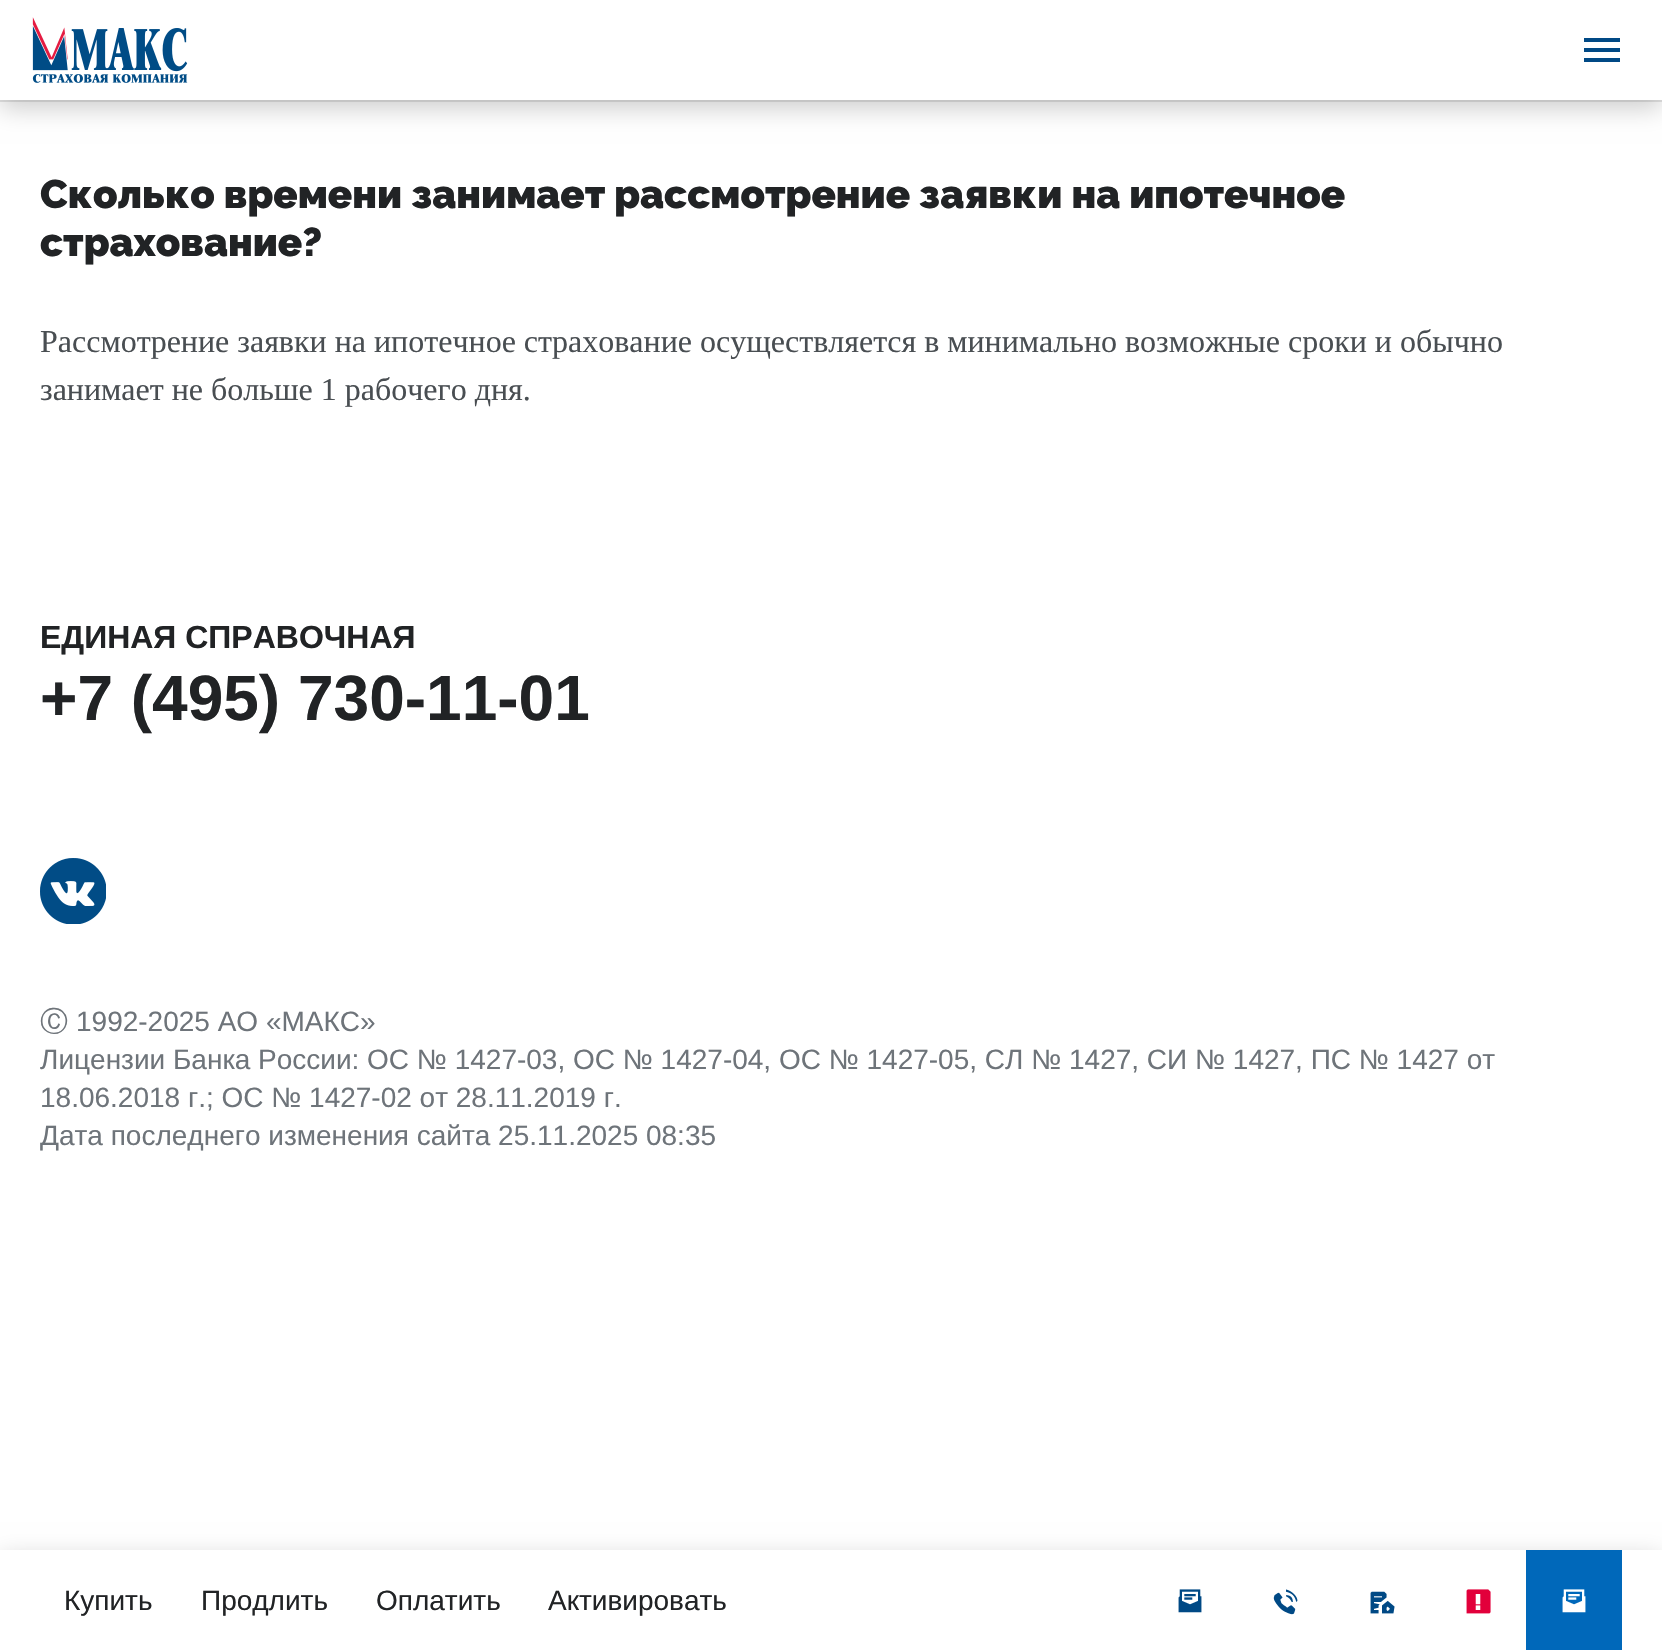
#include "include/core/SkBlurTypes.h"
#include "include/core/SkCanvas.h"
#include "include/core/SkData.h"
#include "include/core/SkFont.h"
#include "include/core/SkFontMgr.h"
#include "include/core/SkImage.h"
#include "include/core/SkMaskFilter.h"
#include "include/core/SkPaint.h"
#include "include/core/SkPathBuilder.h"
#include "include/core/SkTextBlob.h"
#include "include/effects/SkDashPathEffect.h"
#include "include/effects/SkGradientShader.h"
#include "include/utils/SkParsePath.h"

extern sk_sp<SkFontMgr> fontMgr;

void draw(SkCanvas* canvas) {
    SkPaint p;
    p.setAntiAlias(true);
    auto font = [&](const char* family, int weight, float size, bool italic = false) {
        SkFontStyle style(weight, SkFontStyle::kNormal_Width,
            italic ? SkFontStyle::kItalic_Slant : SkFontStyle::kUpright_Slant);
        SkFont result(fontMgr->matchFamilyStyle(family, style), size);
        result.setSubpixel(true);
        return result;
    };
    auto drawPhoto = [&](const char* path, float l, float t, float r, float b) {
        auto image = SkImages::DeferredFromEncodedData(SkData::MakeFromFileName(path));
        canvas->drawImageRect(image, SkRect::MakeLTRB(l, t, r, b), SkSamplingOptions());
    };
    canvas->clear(0xFFFFFFFF);
    p.setColor(0xFFE5E5E5);
    canvas->drawRect(SkRect::MakeLTRB(0, 100, 1662, 102), p);
    p.setColor(0x33000000);
    p.setMaskFilter(SkMaskFilter::MakeBlur(kNormal_SkBlurStyle, 12));
    canvas->drawRect(SkRect::MakeLTRB(0, 8, 1662, 108), p);
    p.setMaskFilter(nullptr);
    p.setColor(0xFFFFFFFF);
    canvas->drawRect(SkRect::MakeLTRB(0, 0, 1662, 100), p);
    drawPhoto("media/1.png", 32, 17, 188, 83);
    {
        const struct { float l, t, r, b; SkColor color; } items[] = {
            {1584, 48, 1620, 52, 0xFF004985},
            {1584, 38, 1620, 42, 0xFF004985},
            {1584, 58, 1620, 62, 0xFF004985},
        };
        for (auto [l, t, r, b, color] : items) {
            p.setColor(color);
            canvas->drawRect(SkRect::MakeLTRB(l, t, r, b), p);
        }
    }
    auto font1 = font("Raleway", 900, 40);
    p.setColor(0xFF212325);
    canvas->drawString("Сколько времени занимает рассмотрение заявки на ипотечное", 40, 208, font1, p);
    canvas->drawString("страхование?", 40, 256, font1, p);
    auto font2 = font("Liberation Serif", 400, 32);
    p.setColor(0xFF494E52);
    canvas->drawString("Рассмотрение заявки на ипотечное страхование осуществляется в минимально возможные сроки и обычно", 40, 352, font2, p);
    canvas->drawString("занимает не больше 1 рабочего дня.", 40, 400, font2, p);
    auto font3 = font("Liberation Sans", 700, 32);
    p.setColor(0xFF212325);
    canvas->drawString("ЕДИНАЯ СПРАВОЧНАЯ", 40, 648, font3, p);
    auto font4 = font("Liberation Sans", 700, 64);
    canvas->drawString("+7 (495) 730-11-01", 40, 720, font4, p);
    drawPhoto("media/2.png", 40, 858, 106, 924);
    auto font5 = font("WenQuanYi Zen Hei", 500, 28);
    p.setColor(0xFF6E747A);
    canvas->drawString("Ⓒ", 40, 1031, font5, p);
    auto font6 = font("Liberation Sans", 400, 28);
    {
        const struct { const char* s; float x, y; } items[] = {
            {"1992-2025 АО «МАКС»", 76, 1031},
            {"Лицензии Банка России: ОС № 1427-03, ОС № 1427-04, ОС № 1427-05, СЛ № 1427, СИ № 1427, ПС № 1427 от", 40, 1069},
            {"18.06.2018 г.; ОС № 1427-02 от 28.11.2019 г.", 40, 1107},
            {"Дата последнего изменения сайта 25.11.2025 08:35", 40, 1145},
        };
        for (auto [s, x, y] : items) {
            canvas->drawString(s, x, y, font6, p);
        }
    }
    p.setColor(0x33000000);
    p.setMaskFilter(SkMaskFilter::MakeBlur(kNormal_SkBlurStyle, 12));
    canvas->drawRect(SkRect::MakeLTRB(0, 1558, 1662, 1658), p);
    p.setMaskFilter(nullptr);
    p.setColor(0xFFFFFFFF);
    canvas->drawRect(SkRect::MakeLTRB(0, 1550, 1662, 1650), p);
    p.setColor(0xFF212325);
    {
        const struct { const char* s; float x, y; } items[] = {
            {"Купить", 64, 1610},
            {"Продлить", 201, 1610},
            {"Оплатить", 376, 1610},
            {"Активировать", 548, 1610},
        };
        for (auto [s, x, y] : items) {
            canvas->drawString(s, x, y, font6, p);
        }
    }
    drawPhoto("media/3.png", 1178, 1589, 1202, 1613);
    drawPhoto("media/4.png", 1273, 1589, 1298, 1615);
    drawPhoto("media/5.png", 1370, 1591, 1395, 1614);
    drawPhoto("media/6.png", 1466, 1589, 1491, 1614);
    p.setColor(0xFF0068BA);
    canvas->drawRect(SkRect::MakeLTRB(1526, 1550, 1622, 1650), p);
    drawPhoto("media/7.png", 1562, 1589, 1586, 1613);
}
